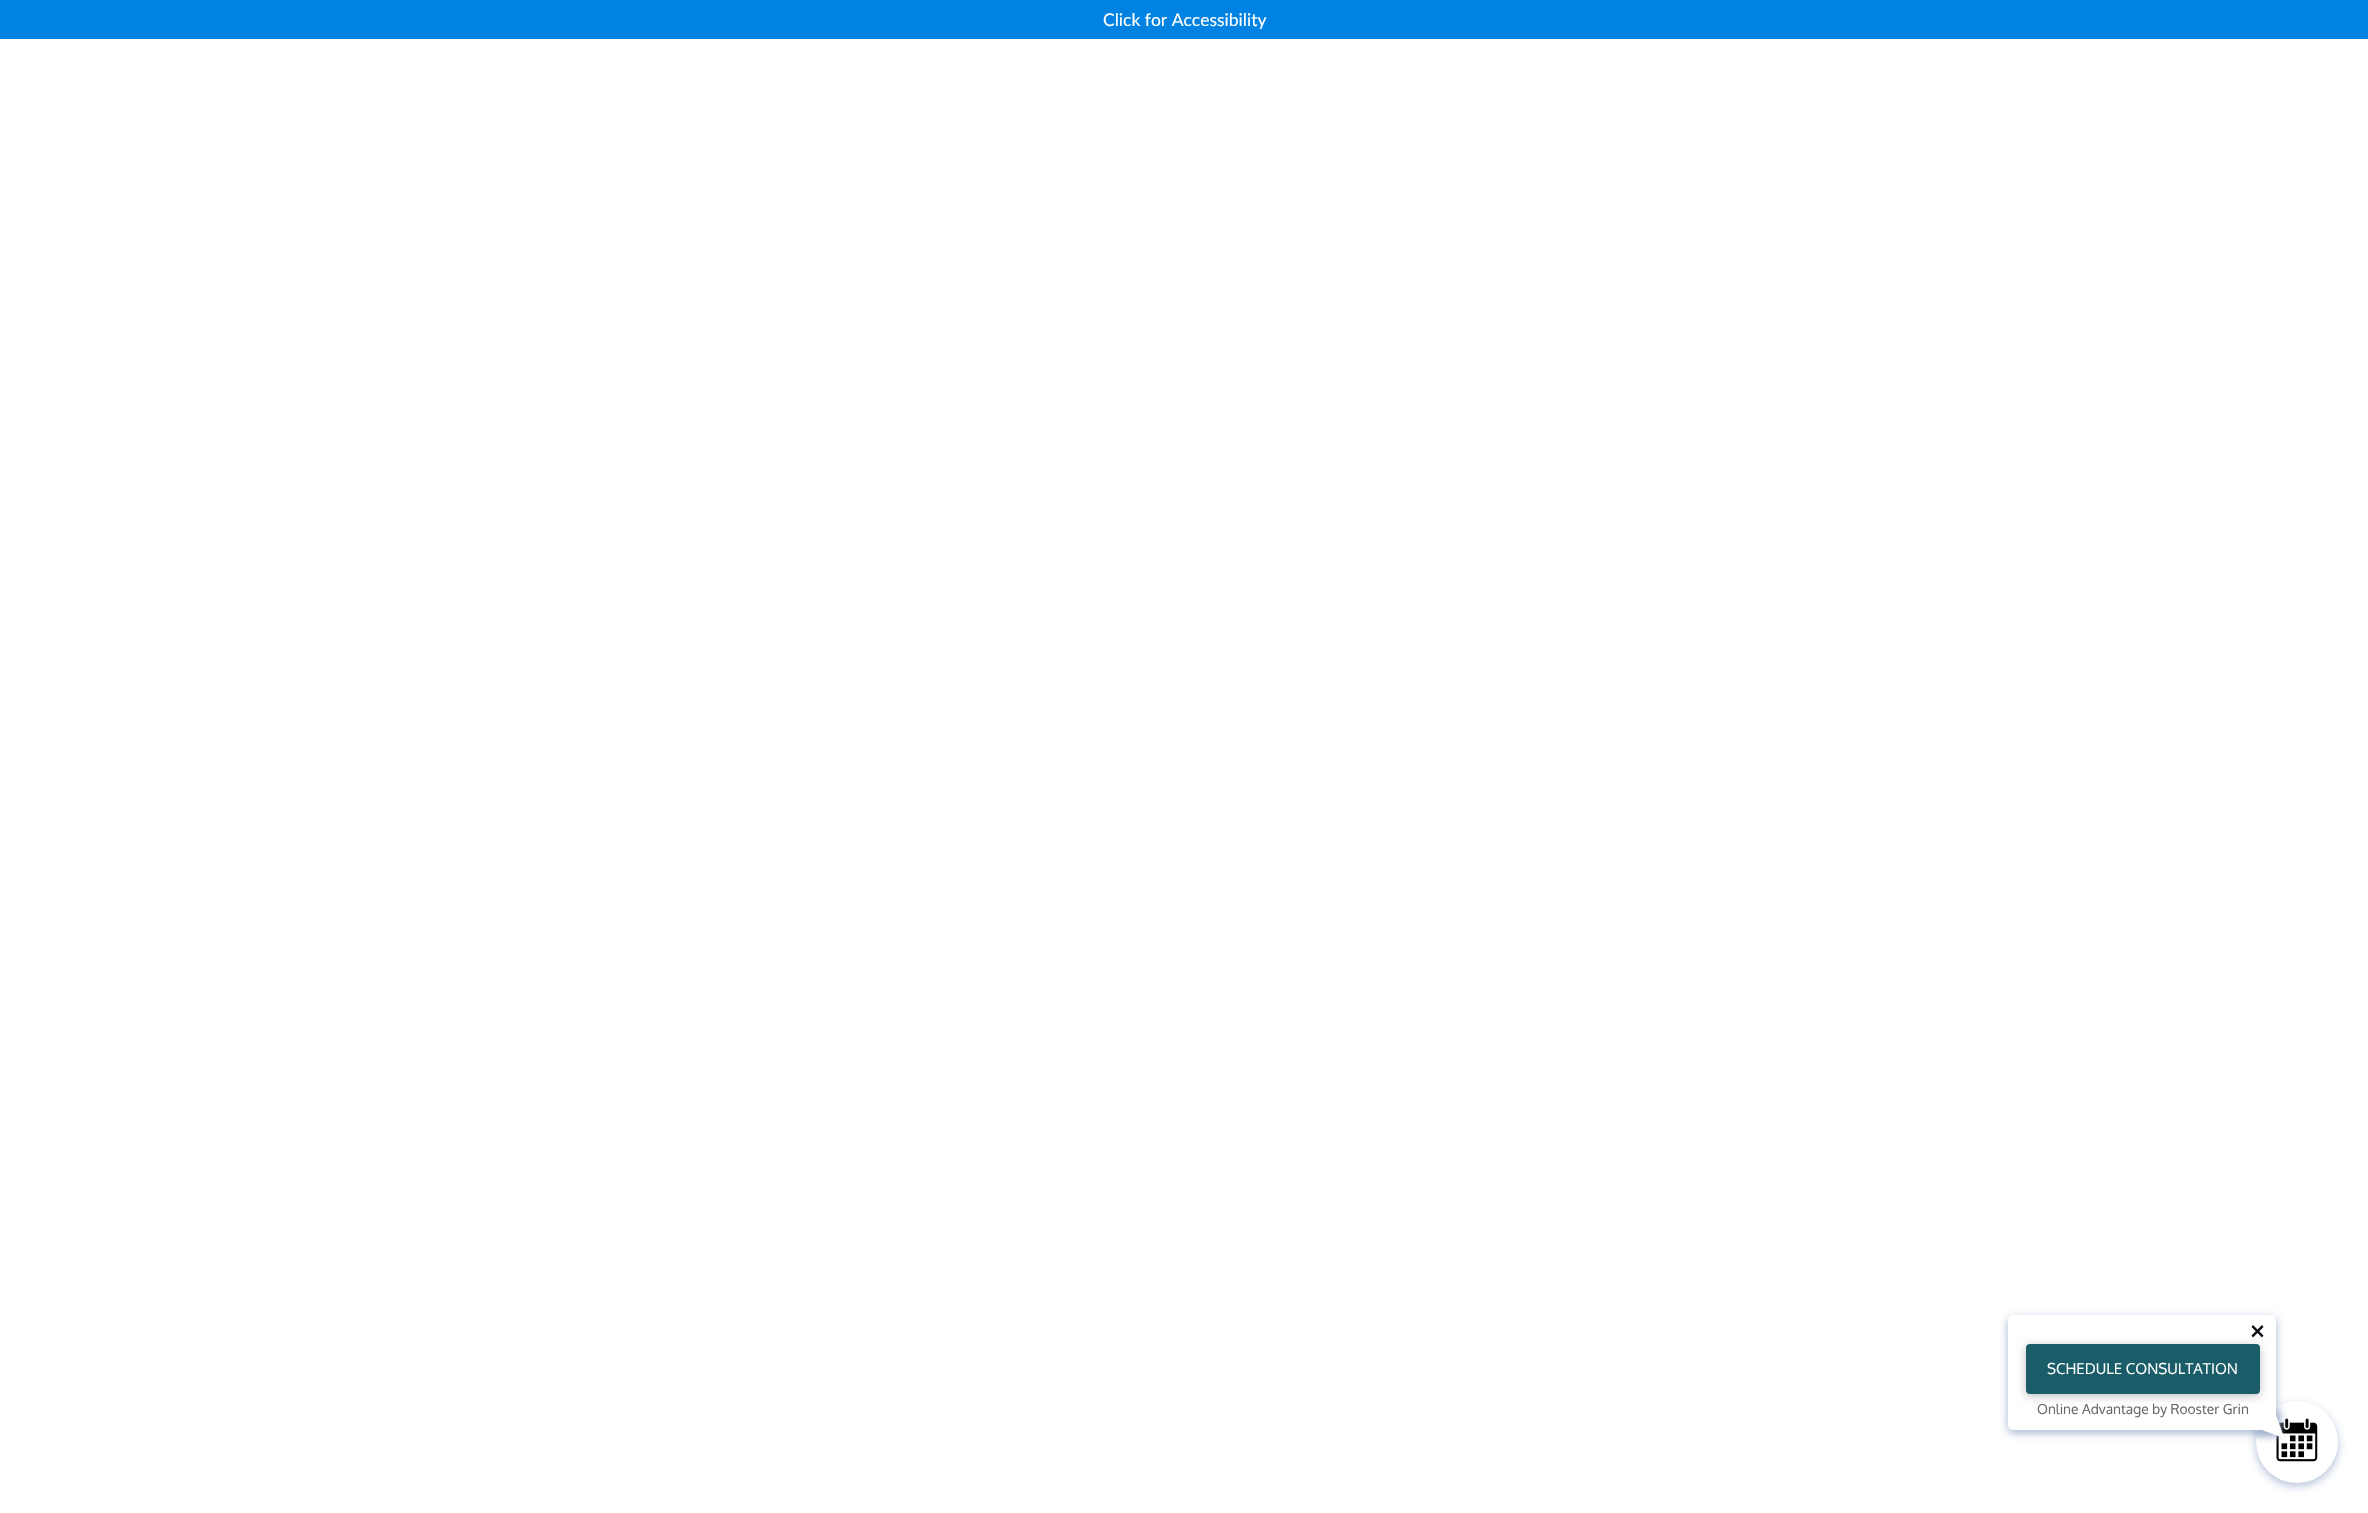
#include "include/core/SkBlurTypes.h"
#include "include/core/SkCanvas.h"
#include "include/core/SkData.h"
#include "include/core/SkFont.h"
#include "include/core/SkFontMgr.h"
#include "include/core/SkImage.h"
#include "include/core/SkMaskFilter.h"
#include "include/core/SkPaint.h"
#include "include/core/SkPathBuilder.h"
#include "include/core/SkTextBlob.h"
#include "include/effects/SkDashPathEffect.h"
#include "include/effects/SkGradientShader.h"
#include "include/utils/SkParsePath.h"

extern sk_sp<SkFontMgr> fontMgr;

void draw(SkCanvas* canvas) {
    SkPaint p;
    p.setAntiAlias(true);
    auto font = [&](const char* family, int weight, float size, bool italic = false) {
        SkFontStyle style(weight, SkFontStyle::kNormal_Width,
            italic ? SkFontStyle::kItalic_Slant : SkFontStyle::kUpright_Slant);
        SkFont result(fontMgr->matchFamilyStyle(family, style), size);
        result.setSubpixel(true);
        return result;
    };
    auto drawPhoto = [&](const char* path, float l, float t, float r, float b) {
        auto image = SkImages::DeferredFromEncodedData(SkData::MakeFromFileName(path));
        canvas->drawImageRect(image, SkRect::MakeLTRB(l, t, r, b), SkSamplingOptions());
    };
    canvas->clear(0xFFFFFFFF);
    p.setColor(0xFF0082E2);
    canvas->drawRect(SkRect::MakeLTRB(0, 0, 2368, 39), p);
    auto font1 = font("Lato", 400, 17.5f);
    p.setColor(0xFFFFFFFF);
    canvas->drawString("Click for Accessibility", 1103, 26, font1, p);
    p.setColor(0xD4A4B4D1);
    p.setMaskFilter(SkMaskFilter::MakeBlur(kNormal_SkBlurStyle, 5));
    canvas->drawRoundRect(SkRect::MakeLTRB(2256, 1405, 2338, 1486), 40.5f, 40.5f, p);
    p.setMaskFilter(nullptr);
    p.setColor(0xFFFFFFFF);
    canvas->drawCircle(2297, 1442, 41, p);
    drawPhoto("media/1.png", 2276, 1418, 2318, 1462);
    p.setColor(0xFFA4B4D1);
    p.setMaskFilter(SkMaskFilter::MakeBlur(kNormal_SkBlurStyle, 4));
    canvas->drawRoundRect(SkRect::MakeLTRB(2008, 1318, 2276, 1433), 5, 5, p);
    p.setMaskFilter(nullptr);
    p.setColor(0xFFFFFFFF);
    canvas->drawRoundRect(SkRect::MakeLTRB(2008, 1315, 2276, 1430), 5, 5, p);
    p.setColor(0xFFA4B4D1);
    p.setMaskFilter(SkMaskFilter::MakeBlur(kNormal_SkBlurStyle, 3.5f));
    canvas->drawRect(SkRect::MakeLTRB(2255, 1411, 2280, 1436), p);
    p.setMaskFilter(nullptr);
    p.setColor(0xFFFFFFFF);
    canvas->drawPath(SkPathBuilder().moveTo(2250.5f, 1404).lineTo(2275.5f, 1413.5f).lineTo(2284.5f, 1438.5f).lineTo(2259.5f, 1429).close().detach(), p);
    canvas->drawRoundRect(SkRect::MakeLTRB(2009, 1316, 2276, 1430), 5, 5, p);
    p.setColor(0x40000000);
    p.setMaskFilter(SkMaskFilter::MakeBlur(kNormal_SkBlurStyle, 5));
    canvas->drawRoundRect(SkRect::MakeLTRB(2026, 1346, 2260, 1396), 4, 4, p);
    p.setMaskFilter(nullptr);
    p.setColor(0xFF0B0F15);
    canvas->drawPath(SkPathBuilder().moveTo(2262, 1325).lineTo(2263.5f, 1327).lineTo(2253, 1337.5f).lineTo(2251.5f, 1335.5f).close().detach(), p);
    canvas->drawPath(SkPathBuilder().moveTo(2251.5f, 1327).lineTo(2253, 1325).lineTo(2263.5f, 1335.5f).lineTo(2262, 1337.5f).close().detach(), p);
    p.setColor(0xFF1B5C69);
    canvas->drawRoundRect(SkRect::MakeLTRB(2026, 1344, 2260, 1394), 4, 4, p);
    auto font2 = font("Oxygen", 400, 15);
    p.setColor(0xFFFFFFFF);
    canvas->drawString("SCHEDULE CONSULTATION", 2047, 1374, font2, p);
    auto font3 = font("Oxygen", 400, 13.75f);
    p.setColor(0xFF666666);
    canvas->drawString("Online Advantage by Rooster Grin", 2037, 1414, font3, p);
}
